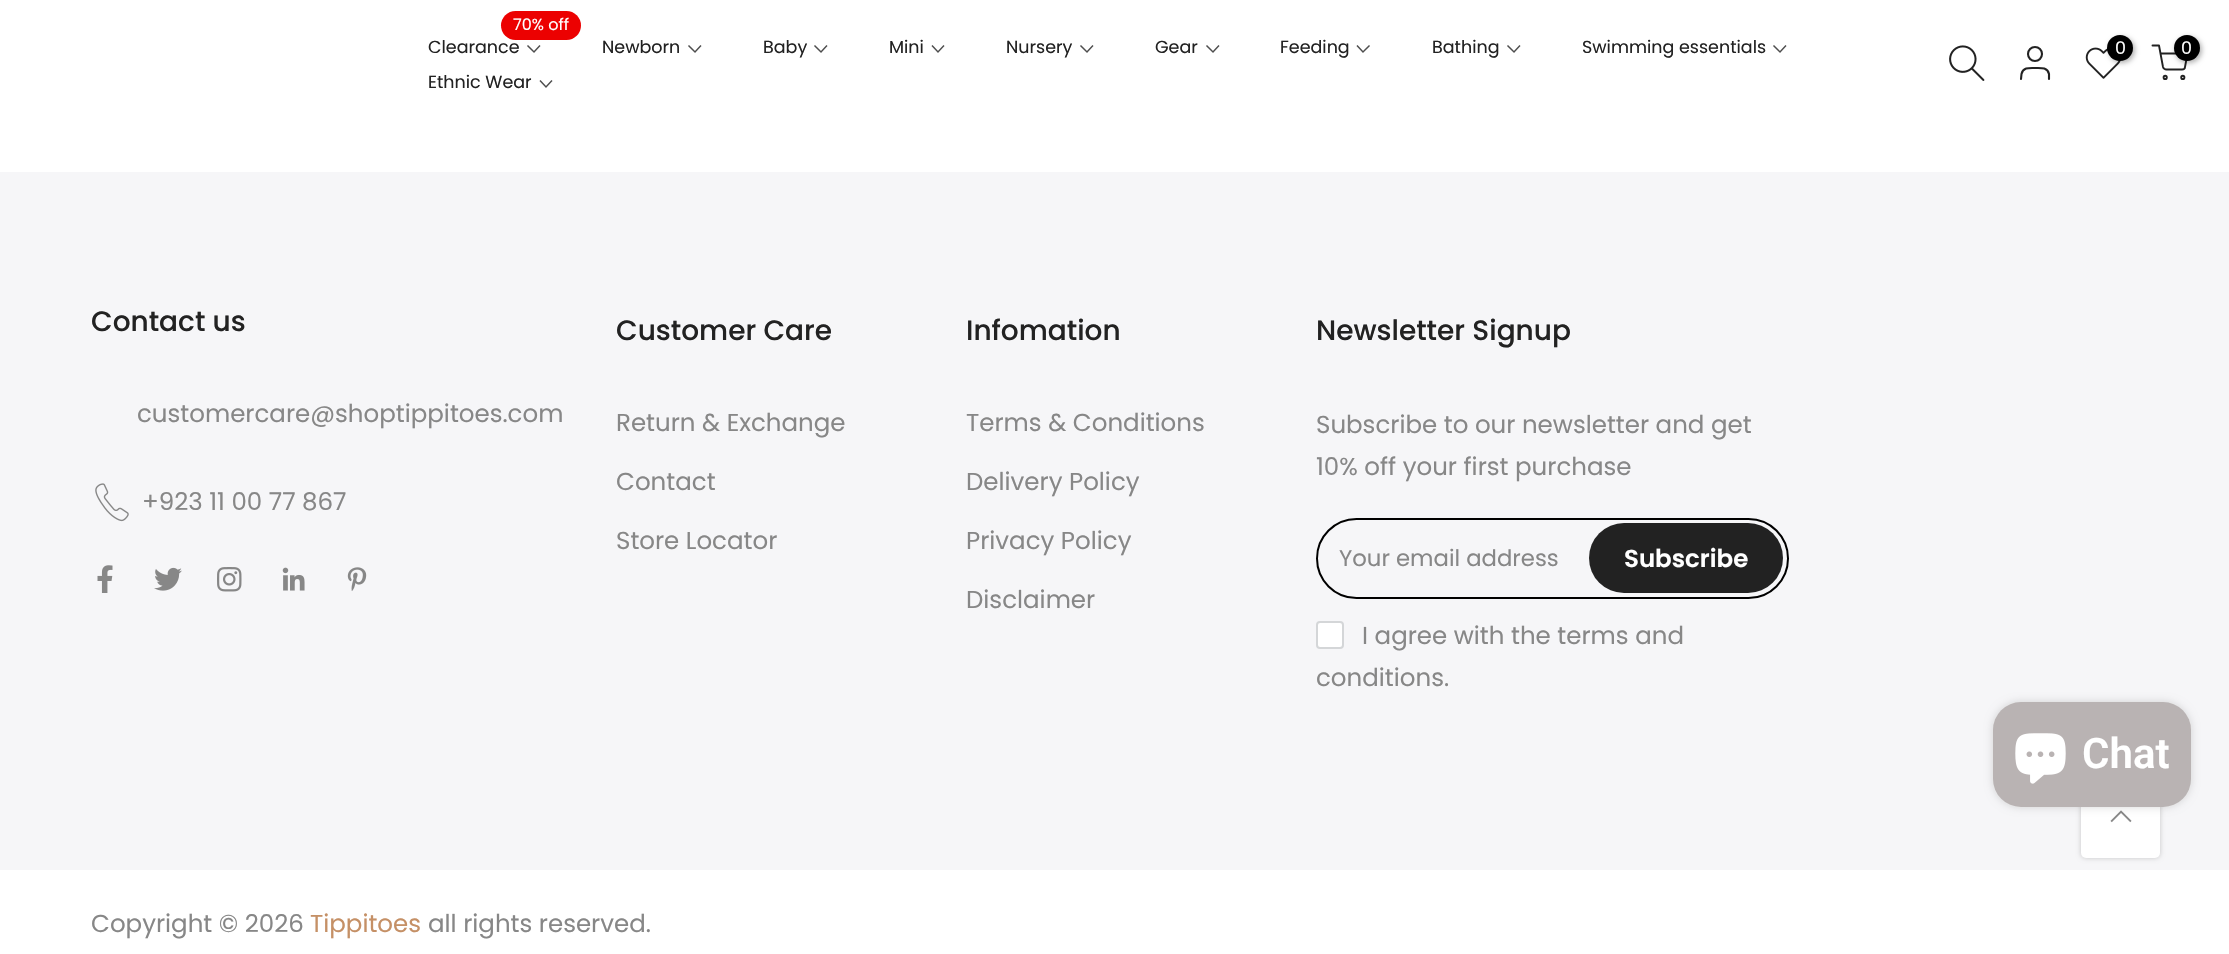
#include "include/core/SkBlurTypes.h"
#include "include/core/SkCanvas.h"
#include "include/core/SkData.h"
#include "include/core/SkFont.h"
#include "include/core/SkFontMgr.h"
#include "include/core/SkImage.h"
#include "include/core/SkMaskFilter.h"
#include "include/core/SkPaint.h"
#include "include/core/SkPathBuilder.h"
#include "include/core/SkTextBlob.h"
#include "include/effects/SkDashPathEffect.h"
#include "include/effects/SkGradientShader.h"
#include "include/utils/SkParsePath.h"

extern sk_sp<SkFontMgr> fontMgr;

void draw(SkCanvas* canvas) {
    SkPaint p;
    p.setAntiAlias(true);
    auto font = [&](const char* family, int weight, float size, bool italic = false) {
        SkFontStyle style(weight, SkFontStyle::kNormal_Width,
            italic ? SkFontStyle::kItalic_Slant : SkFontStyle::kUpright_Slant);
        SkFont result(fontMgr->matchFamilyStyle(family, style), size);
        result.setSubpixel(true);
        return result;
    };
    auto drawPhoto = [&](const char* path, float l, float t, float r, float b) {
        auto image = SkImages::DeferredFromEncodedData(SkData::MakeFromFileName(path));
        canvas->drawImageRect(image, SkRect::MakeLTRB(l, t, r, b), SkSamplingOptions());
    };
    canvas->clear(0xFFFFFFFF);
    p.setColor(0xFFEC0101);
    canvas->drawRoundRect(SkRect::MakeLTRB(501, 11, 581, 40), 14.5f, 14.5f, p);
    auto font1 = font("Poppins", 400, 16);
    p.setColor(0xFFFFFFFF);
    canvas->drawString("70% off", 513, 30, font1, p);
    auto font2 = font("Poppins", 400, 17.5f);
    p.setColor(0xFF222222);
    canvas->drawString("Clearance", 428, 53, font2, p);
    p.setStyle(SkPaint::kStroke_Style);
    p.setStrokeWidth(1.5f);
    p.setStrokeCap(SkPaint::kSquare_Cap);
    p.setColor(0xFF4E4E4E);
    canvas->drawPath(SkPathBuilder().moveTo(539.5f, 46).lineTo(534, 52).lineTo(528, 46).detach(), p);
    p.setStyle(SkPaint::kFill_Style);
    p.setColor(0xFF222222);
    canvas->drawString("Newborn", 602, 53, font2, p);
    p.setStyle(SkPaint::kStroke_Style);
    p.setColor(0xFF4E4E4E);
    canvas->drawPath(SkPathBuilder().moveTo(700.5f, 46).lineTo(695, 52).lineTo(689, 46).detach(), p);
    p.setStyle(SkPaint::kFill_Style);
    p.setColor(0xFF222222);
    canvas->drawString("Baby", 763, 53, font2, p);
    p.setStyle(SkPaint::kStroke_Style);
    p.setColor(0xFF4E4E4E);
    canvas->drawPath(SkPathBuilder().moveTo(826.5f, 46).lineTo(821, 52).lineTo(815, 46).detach(), p);
    p.setStyle(SkPaint::kFill_Style);
    p.setColor(0xFF222222);
    canvas->drawString("Mini", 889, 53, font2, p);
    p.setStyle(SkPaint::kStroke_Style);
    p.setColor(0xFF4E4E4E);
    canvas->drawPath(SkPathBuilder().moveTo(943.5f, 46).lineTo(938, 52).lineTo(932.5f, 46).detach(), p);
    p.setStyle(SkPaint::kFill_Style);
    p.setColor(0xFF222222);
    canvas->drawString("Nursery", 1006, 53, font2, p);
    p.setStyle(SkPaint::kStroke_Style);
    p.setColor(0xFF4E4E4E);
    canvas->drawPath(SkPathBuilder().moveTo(1092.5f, 46).lineTo(1087, 52).lineTo(1081, 46).detach(), p);
    p.setStyle(SkPaint::kFill_Style);
    p.setColor(0xFF222222);
    canvas->drawString("Gear", 1155, 53, font2, p);
    p.setStyle(SkPaint::kStroke_Style);
    p.setColor(0xFF4E4E4E);
    canvas->drawPath(SkPathBuilder().moveTo(1218.5f, 46).lineTo(1213, 52).lineTo(1207, 46).detach(), p);
    p.setStyle(SkPaint::kFill_Style);
    p.setColor(0xFF222222);
    canvas->drawString("Feeding", 1280, 53, font2, p);
    p.setStyle(SkPaint::kStroke_Style);
    p.setColor(0xFF4E4E4E);
    canvas->drawPath(SkPathBuilder().moveTo(1369, 46).lineTo(1363, 52).lineTo(1357.5f, 46).detach(), p);
    p.setStyle(SkPaint::kFill_Style);
    p.setColor(0xFF222222);
    canvas->drawString("Bathing", 1432, 53, font2, p);
    p.setStyle(SkPaint::kStroke_Style);
    p.setColor(0xFF4E4E4E);
    canvas->drawPath(SkPathBuilder().moveTo(1519.5f, 46).lineTo(1514, 52).lineTo(1508, 46).detach(), p);
    p.setStyle(SkPaint::kFill_Style);
    p.setColor(0xFF222222);
    canvas->drawString("Swimming essentials", 1582, 53, font2, p);
    p.setStyle(SkPaint::kStroke_Style);
    p.setColor(0xFF4E4E4E);
    canvas->drawPath(SkPathBuilder().moveTo(1785.5f, 46).lineTo(1780, 52).lineTo(1774, 46).detach(), p);
    p.setStyle(SkPaint::kFill_Style);
    p.setColor(0xFF222222);
    canvas->drawString("Ethnic Wear", 428, 88, font2, p);
    p.setStyle(SkPaint::kStroke_Style);
    p.setColor(0xFF4E4E4E);
    canvas->drawPath(SkPathBuilder().moveTo(551.5f, 81).lineTo(546, 87).lineTo(540.5f, 81).detach(), p);
    drawPhoto("media/1.png", 1949, 45, 1985, 81);
    p.setStrokeWidth(2.1f);
    p.setStrokeCap(SkPaint::kButt_Cap);
    p.setColor(0xFF222222);
    canvas->drawCircle(2035, 54, 7, p);
    p.setStrokeCap(SkPaint::kRound_Cap);
    p.setStrokeJoin(SkPaint::kRound_Join);
    canvas->drawPath(SkPathBuilder().moveTo(2049, 79).lineTo(2049, 74).cubicTo(2047.5f, 67, 2040.5f, 68, 2035, 68).cubicTo(2030, 68, 2023, 67, 2021.5f, 74).lineTo(2021, 79).detach(), p);
    drawPhoto("media/2.png", 2085, 47, 2121, 79);
    p.setStyle(SkPaint::kFill_Style);
    p.setColor(0x4D000000);
    p.setMaskFilter(SkMaskFilter::MakeBlur(kNormal_SkBlurStyle, 2.5f));
    canvas->drawRoundRect(SkRect::MakeLTRB(2109, 37, 2135, 63), 13, 13, p);
    p.setMaskFilter(nullptr);
    p.setColor(0xFF000000);
    canvas->drawCircle(2120, 48, 13, p);
    p.setColor(0xFFFFFFFF);
    canvas->drawString("0", 2115, 54, font2, p);
    p.setStyle(SkPaint::kStroke_Style);
    p.setStrokeWidth(1.9f);
    p.setColor(0xFF222222);
    canvas->drawPath(SkPathBuilder().moveTo(2152.5f, 45.5f).lineTo(2159, 45.5f).lineTo(2163, 67).cubicTo(2163.5f, 68.5f, 2164.5f, 69.5f, 2166.5f, 69.5f).lineTo(2182, 69.5f).cubicTo(2183.5f, 69.5f, 2185, 68.5f, 2185, 67).lineTo(2187.5f, 53.5f).lineTo(2160.5f, 53.5f).detach(), p);
    p.setStyle(SkPaint::kFill_Style);
    p.setColor(0x4D000000);
    p.setMaskFilter(SkMaskFilter::MakeBlur(kNormal_SkBlurStyle, 2.5f));
    canvas->drawRoundRect(SkRect::MakeLTRB(2175, 37, 2202, 63), 13, 13, p);
    p.setMaskFilter(nullptr);
    p.setColor(0xFF000000);
    canvas->drawCircle(2187, 48, 13, p);
    p.setColor(0xFFFFFFFF);
    canvas->drawString("0", 2181, 54, font2, p);
    p.setStyle(SkPaint::kStroke_Style);
    p.setStrokeCap(SkPaint::kButt_Cap);
    p.setStrokeJoin(SkPaint::kMiter_Join);
    p.setColor(0xFF222222);
    canvas->drawCircle(2165.2f, 77.4f, 1.6f, p);
    canvas->drawCircle(2182.8f, 77.4f, 1.6f, p);
    p.setStyle(SkPaint::kFill_Style);
    p.setColor(0xFFF6F6F8);
    canvas->drawRect(SkRect::MakeLTRB(0, 172, 2229, 870), p);
    auto font3 = font("Poppins", 500, 28);
    p.setColor(0xFF222222);
    canvas->drawString("Contact us", 91, 331, font3, p);
    auto font4 = font("Poppins", 400, 24.5f);
    p.setColor(0xFF878787);
    canvas->drawString("customercare@shoptippitoes.com", 137, 422, font4, p);
    drawPhoto("media/3.png", 95, 483, 129, 522);
    canvas->drawString("+923 11 00 77 867", 142, 510, font4, p);
    drawPhoto("media/4.png", 97, 565, 113, 593);
    drawPhoto("media/5.png", 154, 567, 182, 591);
    drawPhoto("media/6.png", 217, 567, 242, 592);
    drawPhoto("media/7.png", 282, 567, 305, 591);
    drawPhoto("media/8.png", 347, 567, 367, 591);
    p.setColor(0xFF222222);
    canvas->drawString("Customer Care", 616, 340, font3, p);
    p.setColor(0xFF878787);
    {
        const struct { const char* s; float x, y; } items[] = {
            {"Return & Exchange", 616, 431},
            {"Contact", 616, 490},
            {"Store Locator", 616, 549},
        };
        for (auto [s, x, y] : items) {
            canvas->drawString(s, x, y, font4, p);
        }
    }
    p.setColor(0xFF222222);
    canvas->drawString("Infomation", 966, 340, font3, p);
    p.setColor(0xFF878787);
    {
        const struct { const char* s; float x, y; } items[] = {
            {"Terms & Conditions", 966, 431},
            {"Delivery Policy", 966, 490},
            {"Privacy Policy", 966, 549},
            {"Disclaimer", 966, 608},
        };
        for (auto [s, x, y] : items) {
            canvas->drawString(s, x, y, font4, p);
        }
    }
    p.setColor(0xFF222222);
    canvas->drawString("Newsletter Signup", 1316, 340, font3, p);
    p.setColor(0xFF878787);
    canvas->drawString("Subscribe to our newsletter and get", 1316, 433, font4, p);
    canvas->drawString("10% off your first purchase", 1316, 475, font4, p);
    p.setStyle(SkPaint::kStroke_Style);
    p.setStrokeWidth(2);
    p.setColor(0xFF000000);
    canvas->drawRoundRect(SkRect::MakeLTRB(1317, 519, 1788, 598), 39.5f, 39.5f, p);
    auto font5 = font("Poppins", 400, 22.75f);
    p.setStyle(SkPaint::kFill_Style);
    p.setColor(0xFF878787);
    canvas->drawString("Your email address", 1339, 566, font5, p);
    p.setColor(0xFF222222);
    canvas->drawRoundRect(SkRect::MakeLTRB(1589, 523, 1783, 593), 35, 35, p);
    auto font6 = font("Poppins", 600, 24.5f);
    p.setColor(0xFFFFFFFF);
    canvas->drawString("Subscribe", 1624, 567, font6, p);
    canvas->drawRoundRect(SkRect::MakeLTRB(1317, 622, 1343, 648), 3, 3, p);
    p.setStyle(SkPaint::kStroke_Style);
    p.setColor(0xFFD4D6D8);
    canvas->drawRoundRect(SkRect::MakeLTRB(1317, 622, 1343, 648), 3, 3, p);
    p.setStyle(SkPaint::kFill_Style);
    p.setColor(0xFF878787);
    {
        const struct { const char* s; float x, y; } items[] = {
            {"I agree with the terms and", 1362, 644},
            {"conditions.", 1316, 686},
            {"Copyright © 2026", 91, 932},
        };
        for (auto [s, x, y] : items) {
            canvas->drawString(s, x, y, font4, p);
        }
    }
    p.setColor(0xFFC59066);
    canvas->drawString("Tippitoes", 310, 932, font4, p);
    p.setColor(0xFF878787);
    canvas->drawString("all rights reserved.", 428, 932, font4, p);
    p.setColor(0x33000000);
    p.setMaskFilter(SkMaskFilter::MakeBlur(kNormal_SkBlurStyle, 2.5f));
    canvas->drawRoundRect(SkRect::MakeLTRB(2081, 779, 2160, 858), 5, 5, p);
    p.setMaskFilter(nullptr);
    p.setColor(0xFFFFFFFF);
    canvas->drawRoundRect(SkRect::MakeLTRB(2081, 779, 2160, 858), 5, 5, p);
    drawPhoto("media/10.png", 2110, 810, 2132, 823);
    p.setColor(0x26000000);
    p.setMaskFilter(SkMaskFilter::MakeBlur(kNormal_SkBlurStyle, 4.5f));
    canvas->drawRoundRect(SkRect::MakeLTRB(1993, 702, 2191, 807), 28, 28, p);
    p.setMaskFilter(nullptr);
    p.setColor(0xFFB9B3B3);
    canvas->drawRoundRect(SkRect::MakeLTRB(1993, 702, 2191, 807), 28, 28, p);
    drawPhoto("media/9.png", 2015, 733, 2066, 784);
    auto font7 = font("Roboto", 600, 42);
    p.setColor(0xFFFFFFFF);
    canvas->drawString("Chat", 2082, 768, font7, p);
}
